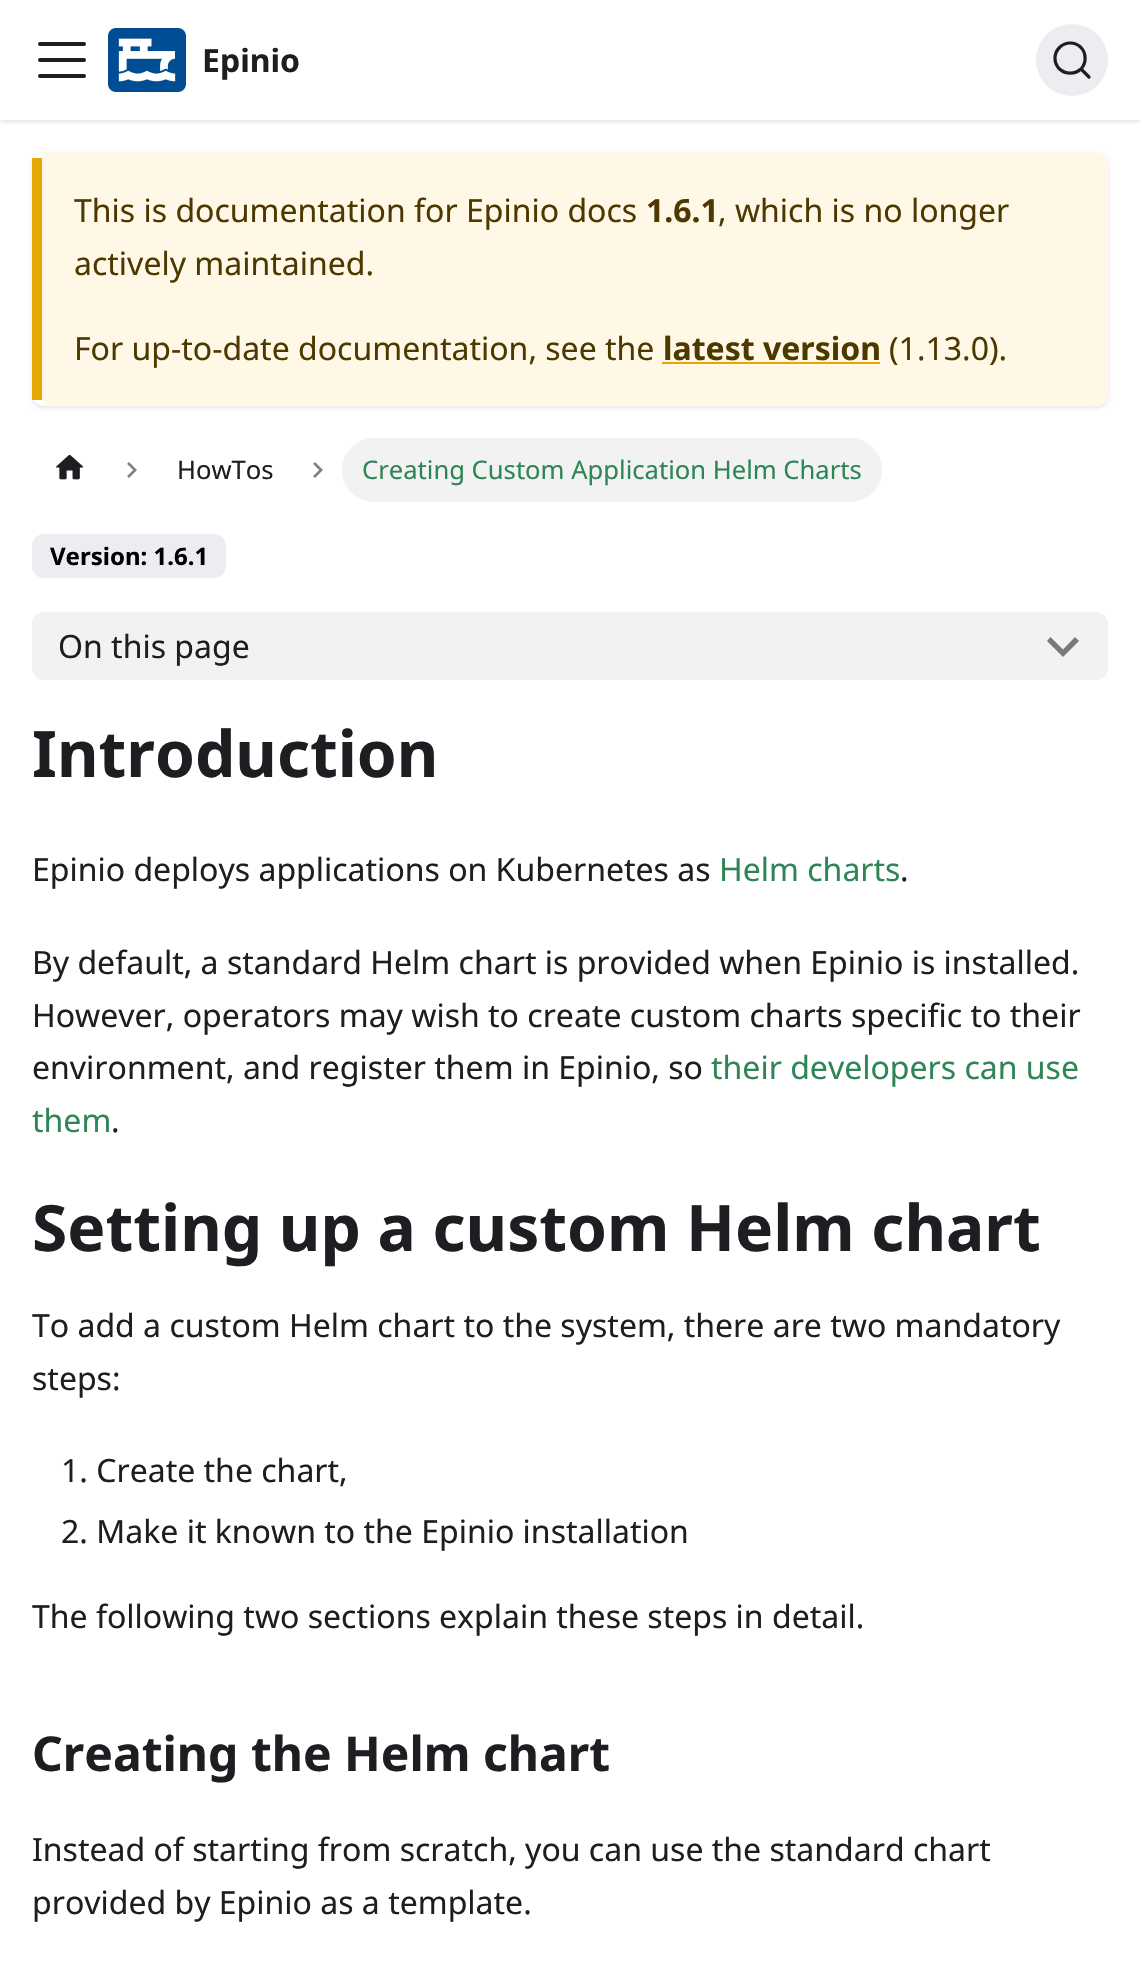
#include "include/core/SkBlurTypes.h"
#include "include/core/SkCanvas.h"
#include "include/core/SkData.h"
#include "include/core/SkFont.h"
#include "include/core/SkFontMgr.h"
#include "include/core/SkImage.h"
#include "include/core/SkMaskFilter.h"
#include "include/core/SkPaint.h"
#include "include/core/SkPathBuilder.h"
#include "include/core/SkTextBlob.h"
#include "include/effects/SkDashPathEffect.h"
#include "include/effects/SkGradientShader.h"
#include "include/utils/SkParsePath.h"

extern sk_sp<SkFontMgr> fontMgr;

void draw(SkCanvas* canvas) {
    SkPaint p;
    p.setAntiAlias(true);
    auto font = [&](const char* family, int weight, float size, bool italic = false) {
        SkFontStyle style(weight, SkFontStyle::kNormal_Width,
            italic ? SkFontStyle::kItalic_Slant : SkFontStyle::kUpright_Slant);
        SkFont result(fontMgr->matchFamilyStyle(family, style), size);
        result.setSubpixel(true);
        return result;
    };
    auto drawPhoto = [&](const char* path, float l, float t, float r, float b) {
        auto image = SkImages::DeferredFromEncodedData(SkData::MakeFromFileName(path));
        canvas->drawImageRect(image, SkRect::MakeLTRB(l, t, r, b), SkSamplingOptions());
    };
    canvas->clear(0xFFFFFFFF);
    canvas->save();
    canvas->clipRect(SkRect::MakeLTRB(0, 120, 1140, 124));
    p.setColor(0x1A000000);
    p.setMaskFilter(SkMaskFilter::MakeBlur(kNormal_SkBlurStyle, 2));
    canvas->drawRect(SkRect::MakeLTRB(0, 2, 1140, 122), p);
    p.setMaskFilter(nullptr);
    canvas->restore();
    p.setStyle(SkPaint::kStroke_Style);
    p.setStrokeWidth(4);
    p.setStrokeCap(SkPaint::kRound_Cap);
    p.setColor(0xFF1C1E21);
    canvas->drawPath(SkPathBuilder().moveTo(40, 44).lineTo(84, 44).moveTo(40, 60).lineTo(84, 60).moveTo(40, 76).lineTo(84, 76).detach(), p);
    drawPhoto("media/1.png", 108, 28, 186, 92);
    auto font1 = font("Noto Sans", 700, 32);
    p.setStyle(SkPaint::kFill_Style);
    canvas->drawString("Epinio", 202, 72, font1, p);
    p.setColor(0xFFEBEDF0);
    canvas->drawCircle(1072, 60, 36, p);
    p.setStyle(SkPaint::kStroke_Style);
    p.setStrokeWidth(3.2f);
    p.setStrokeJoin(SkPaint::kRound_Join);
    p.setColor(0xFF1C1E21);
    canvas->drawPath(SkPathBuilder().moveTo(1081, 69).lineTo(1089, 77).lineTo(1081, 69).cubicTo(1075, 74.5f, 1065.5f, 74.5f, 1059.5f, 69).cubicTo(1053.5f, 63, 1053.5f, 53.5f, 1059.5f, 47.5f).cubicTo(1065.5f, 41.5f, 1075, 41.5f, 1081, 47.5f).cubicTo(1086.5f, 53.5f, 1086.5f, 63, 1081, 69).close().detach(), p);
    canvas->save();
    canvas->clipPath(SkPathBuilder(SkPathFillType::kEvenOdd).moveTo(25, 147).lineTo(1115, 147).lineTo(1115, 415).lineTo(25, 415).close().moveTo(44, 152).lineTo(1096, 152).cubicTo(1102.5f, 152, 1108, 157.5f, 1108, 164).lineTo(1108, 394).cubicTo(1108, 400.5f, 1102.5f, 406, 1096, 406).lineTo(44, 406).cubicTo(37.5f, 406, 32, 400.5f, 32, 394).lineTo(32, 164).cubicTo(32, 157.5f, 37.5f, 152, 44, 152).close().detach(), true);
    p.setStyle(SkPaint::kFill_Style);
    p.setColor(0x1A000000);
    p.setMaskFilter(SkMaskFilter::MakeBlur(kNormal_SkBlurStyle, 2));
    canvas->drawRoundRect(SkRect::MakeLTRB(32, 154, 1108, 408), 12, 12, p);
    p.setMaskFilter(nullptr);
    canvas->restore();
    p.setColor(0xFFFFF8E6);
    canvas->drawPath(SkPathBuilder().moveTo(45, 152).lineTo(1095, 152).cubicTo(1102, 152, 1108, 158, 1108, 165).lineTo(1108, 393).cubicTo(1108, 400, 1102, 406, 1095, 406).lineTo(45, 406).cubicTo(43, 406, 42, 400, 42, 393).lineTo(42, 165).cubicTo(42, 158, 43, 152, 45, 152).close().detach(), p);
    p.setColor(0xFFE6A700);
    canvas->drawRect(SkRect::MakeLTRB(32, 158, 42, 400), p);
    auto font2 = font("Noto Sans", 400, 32);
    p.setColor(0xFF4D3800);
    canvas->drawString("This is documentation for Epinio docs", 74, 222, font2, p);
    canvas->drawString("1.6.1", 646, 222, font1, p);
    {
        const struct { const char* s; float x, y; } items[] = {
            {", which is no longer", 718, 222},
            {"actively maintained.", 74, 275},
            {"For up-to-date documentation, see the", 74, 360},
        };
        for (auto [s, x, y] : items) {
            canvas->drawString(s, x, y, font2, p);
        }
    }
    canvas->drawString("latest version", 663, 360, font1, p);
    p.setColor(0xFFE6A700);
    canvas->drawRect(SkRect::MakeLTRB(662, 362, 880, 364), p);
    p.setColor(0xFF4D3800);
    canvas->drawString("(1.13.0).", 889, 360, font2, p);
    drawPhoto("media/2.png", 56, 454, 83, 480);
    drawPhoto("media/3.png", 127, 462, 137, 478);
    auto font3 = font("Noto Sans", 400, 25.6f);
    p.setColor(0xFF1C1E21);
    canvas->drawString("HowTos", 177, 479, font3, p);
    drawPhoto("media/3.png", 313, 462, 323, 478);
    p.setColor(0xFFF2F2F2);
    canvas->drawRoundRect(SkRect::MakeLTRB(342, 438, 882, 502), 32, 32, p);
    p.setColor(0xFF2E8555);
    canvas->drawString("Creating Custom Application Helm Charts", 362, 479, font3, p);
    p.setColor(0xFFEBEDF0);
    canvas->drawRoundRect(SkRect::MakeLTRB(33, 535, 225, 577), 11, 11, p);
    p.setStyle(SkPaint::kStroke_Style);
    p.setStrokeWidth(2);
    p.setStrokeCap(SkPaint::kButt_Cap);
    p.setStrokeJoin(SkPaint::kMiter_Join);
    canvas->drawRoundRect(SkRect::MakeLTRB(33, 535, 225, 577), 11, 11, p);
    auto font4 = font("Noto Sans", 700, 24);
    p.setStyle(SkPaint::kFill_Style);
    p.setColor(0xFF000000);
    canvas->drawString("Version: 1.6.1", 50, 565, font4, p);
    p.setColor(0xFFF2F2F2);
    canvas->drawRoundRect(SkRect::MakeLTRB(32, 612, 1108, 680), 12, 12, p);
    p.setColor(0xFF1C1E21);
    canvas->drawString("On this page", 58, 658, font2, p);
    p.setColor(0xFF797979);
    canvas->drawPath(SkPathBuilder().moveTo(1075, 637).lineTo(1063, 649.5f).lineTo(1050.5f, 637).lineTo(1047, 641).lineTo(1063, 657).lineTo(1079, 641).close().detach(), p);
    auto font5 = font("Noto Sans", 700, 64);
    p.setColor(0xFF1C1E21);
    canvas->drawString("Introduction", 32, 777, font5, p);
    canvas->drawString("Epinio deploys applications on Kubernetes as", 32, 881, font2, p);
    p.setColor(0xFF2E8555);
    canvas->drawString("Helm charts", 719, 881, font2, p);
    p.setColor(0xFF1C1E21);
    {
        const struct { const char* s; float x, y; } items[] = {
            {".", 900, 881},
            {"By default, a standard Helm chart is provided when Epinio is installed.", 32, 974},
            {"However, operators may wish to create custom charts specific to their", 32, 1027},
            {"environment, and register them in Epinio, so", 32, 1079},
        };
        for (auto [s, x, y] : items) {
            canvas->drawString(s, x, y, font2, p);
        }
    }
    p.setColor(0xFF2E8555);
    canvas->drawString("their developers can use", 711, 1079, font2, p);
    canvas->drawString("them", 32, 1132, font2, p);
    p.setColor(0xFF1C1E21);
    canvas->drawString(".", 111, 1132, font2, p);
    canvas->drawString("Setting up a custom Helm chart", 32, 1251, font5, p);
    {
        const struct { const char* s; float x, y; } items[] = {
            {"To add a custom Helm chart to the system, there are two mandatory", 32, 1337},
            {"steps:", 32, 1390},
            {"1. Create the chart,", 61, 1482},
            {"2. Make it known to the Epinio installation", 61, 1543},
            {"The following two sections explain these steps in detail.", 32, 1628},
        };
        for (auto [s, x, y] : items) {
            canvas->drawString(s, x, y, font2, p);
        }
    }
    auto font6 = font("Noto Sans", 700, 48);
    canvas->drawString("Creating the Helm chart", 32, 1771, font6, p);
    canvas->drawString("Instead of starting from scratch, you can use the standard chart", 32, 1861, font2, p);
    canvas->drawString("provided by Epinio as a template.", 32, 1914, font2, p);
}
